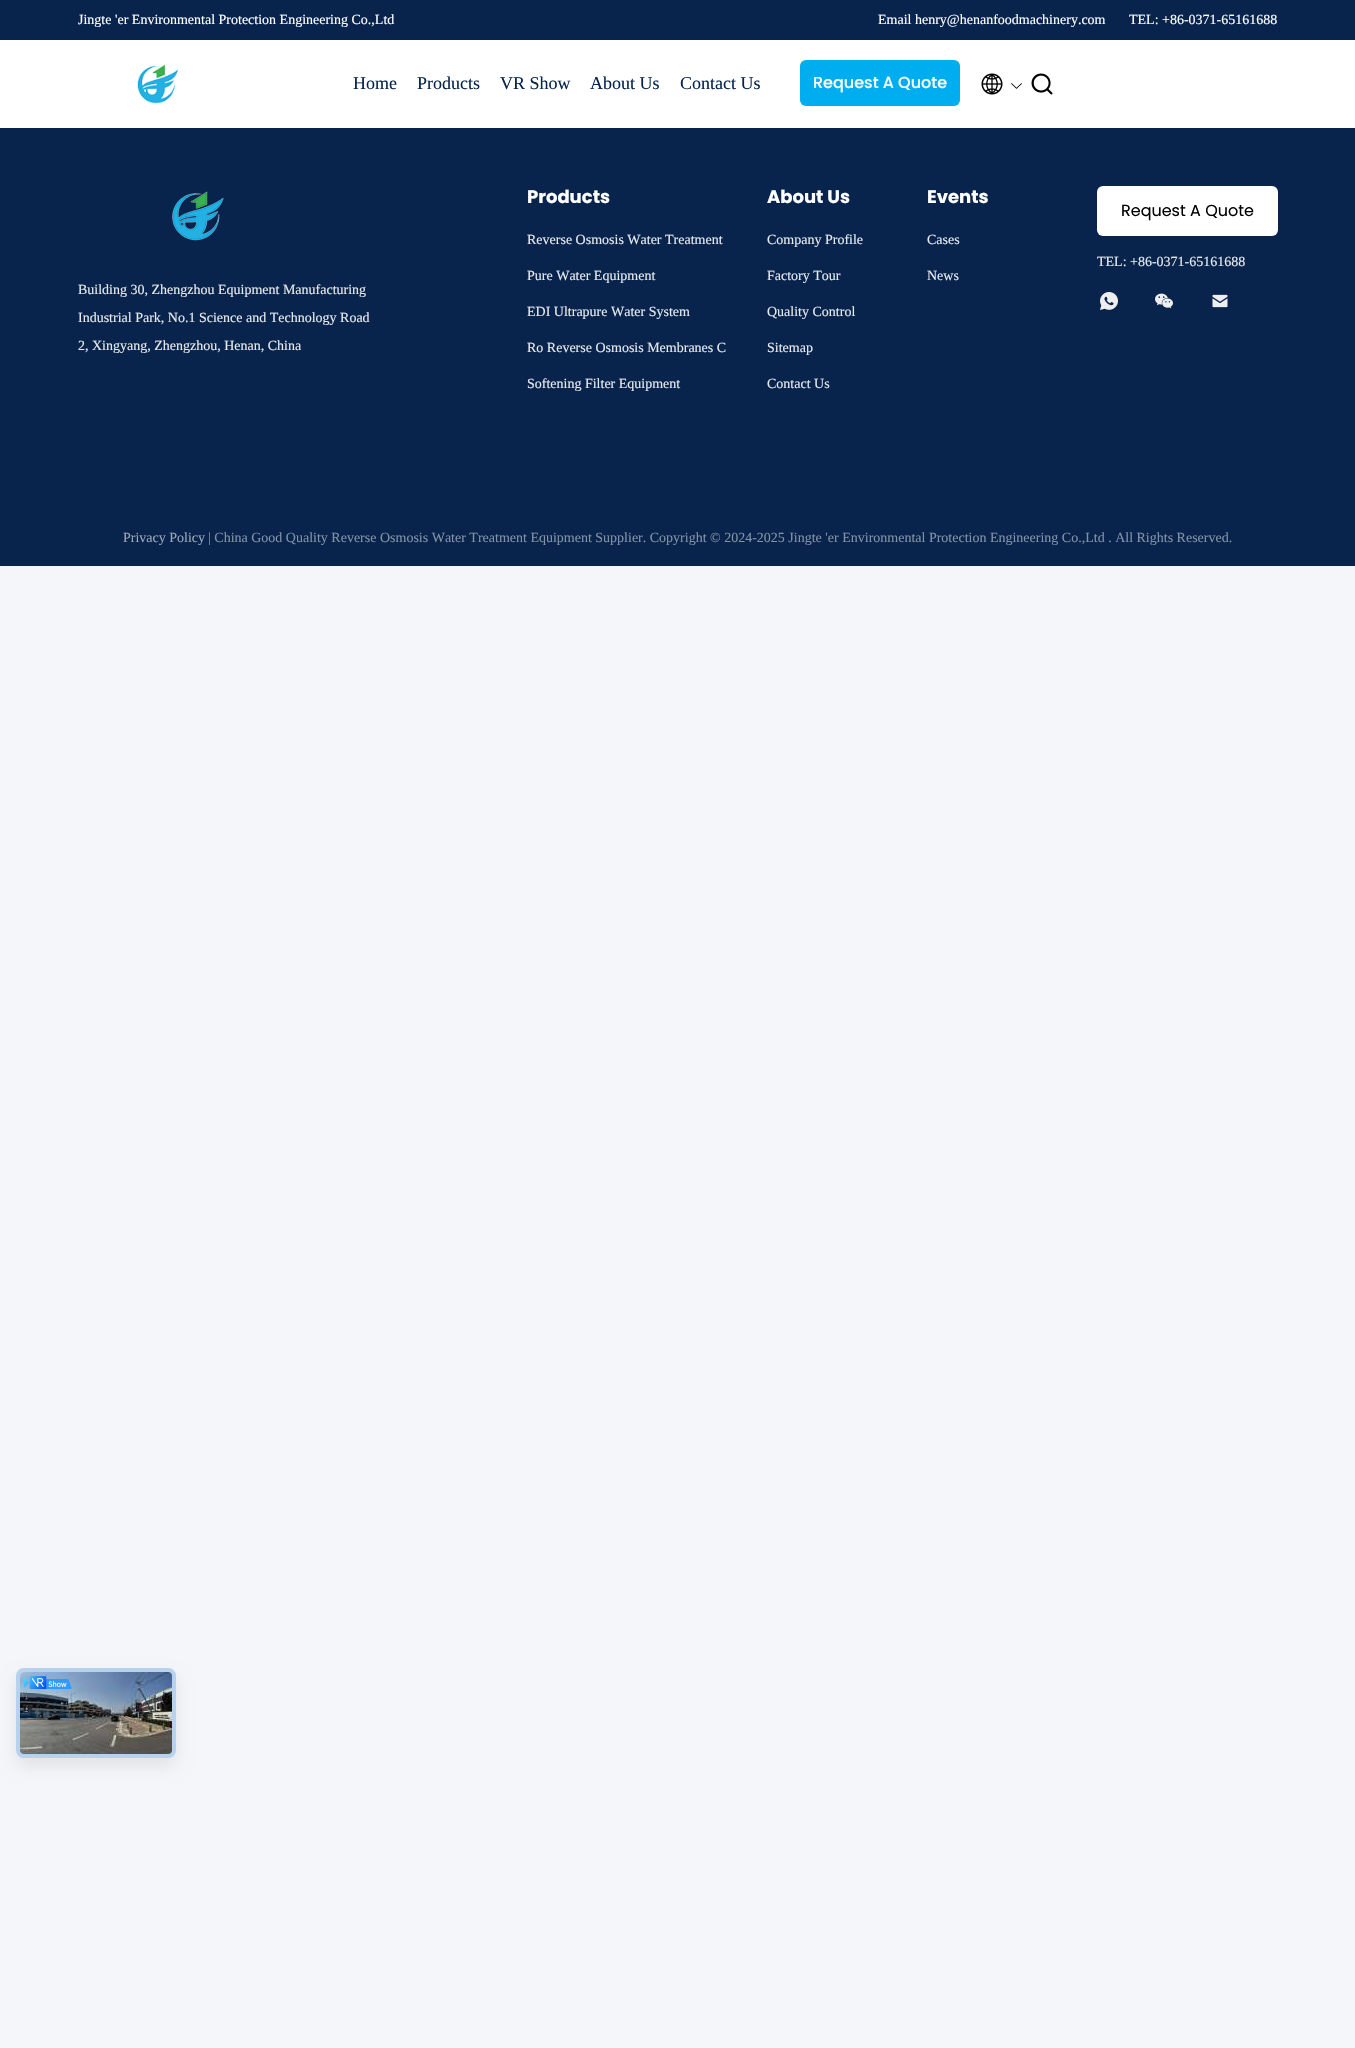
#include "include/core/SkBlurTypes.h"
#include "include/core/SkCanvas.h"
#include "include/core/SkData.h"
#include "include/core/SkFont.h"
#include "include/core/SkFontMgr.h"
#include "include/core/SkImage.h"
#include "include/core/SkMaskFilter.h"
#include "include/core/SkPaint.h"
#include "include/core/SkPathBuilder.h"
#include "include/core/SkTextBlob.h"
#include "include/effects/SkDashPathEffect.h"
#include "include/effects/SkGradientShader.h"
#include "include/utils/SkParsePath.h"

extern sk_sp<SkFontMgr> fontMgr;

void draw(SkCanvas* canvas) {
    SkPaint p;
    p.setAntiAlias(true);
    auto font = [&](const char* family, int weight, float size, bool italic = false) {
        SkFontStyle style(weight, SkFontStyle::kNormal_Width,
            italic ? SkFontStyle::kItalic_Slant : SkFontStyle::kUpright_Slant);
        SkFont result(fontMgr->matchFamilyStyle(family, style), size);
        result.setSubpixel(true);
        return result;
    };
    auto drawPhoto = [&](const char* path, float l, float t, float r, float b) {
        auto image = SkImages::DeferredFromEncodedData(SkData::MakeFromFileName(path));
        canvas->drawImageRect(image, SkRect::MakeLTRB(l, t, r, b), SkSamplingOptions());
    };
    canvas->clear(0xFFF4F6F9);
    p.setColor(0xFFFFFFFF);
    canvas->drawRect(SkRect::MakeLTRB(0, 40, 1355, 128), p);
    p.setColor(0xFF08244C);
    canvas->drawRect(SkRect::MakeLTRB(0, 0, 1355, 40), p);
    auto font1 = font("Liberation Serif", 400, 14);
    p.setColor(0xFFFFFFFF);
    {
        const struct { const char* s; float x, y; } items[] = {
            {"Jingte 'er Environmental Protection Engineering Co.,Ltd", 78, 24},
            {"Email henry@henanfoodmachinery.com", 878, 24},
            {"TEL: +86-0371-65161688", 1129, 24},
        };
        for (auto [s, x, y] : items) {
            canvas->drawString(s, x, y, font1, p);
        }
    }
    drawPhoto("media/1.png", 137, 64, 179, 104);
    auto font2 = font("Liberation Serif", 400, 18);
    p.setColor(0xFF08244C);
    {
        const struct { const char* s; float x, y; } items[] = {
            {"Home", 353, 89},
            {"Products", 417, 89},
            {"VR Show", 500, 89},
            {"About Us", 590, 89},
            {"Contact Us", 680, 89},
        };
        for (auto [s, x, y] : items) {
            canvas->drawString(s, x, y, font2, p);
        }
    }
    p.setColor(0xFF00AEEF);
    canvas->drawRoundRect(SkRect::MakeLTRB(800, 60, 960, 106), 6, 6, p);
    auto font3 = font("Poppins", 500, 16);
    p.setColor(0xFFFFFFFF);
    canvas->drawString("Request A Quote", 813, 88, font3, p);
    drawPhoto("media/2.png", 981, 73, 1003, 95);
    drawPhoto("media/3.png", 1011, 83, 1022, 89);
    drawPhoto("media/4.png", 1031, 73, 1053, 95);
    p.setColor(0xFF08244C);
    canvas->drawRect(SkRect::MakeLTRB(0, 128, 1355, 566), p);
    auto font4 = font("Poppins", 700, 18);
    p.setColor(0xFFFFFFFF);
    canvas->drawString("Products", 527, 203, font4, p);
    p.setColor(0xFFE6E9ED);
    {
        const struct { const char* s; float x, y; } items[] = {
            {"Reverse Osmosis Water Treatment", 527, 244},
            {"Pure Water Equipment", 527, 280},
            {"EDI Ultrapure Water System", 527, 316},
            {"Ro Reverse Osmosis Membranes C", 527, 352},
            {"Softening Filter Equipment", 527, 388},
        };
        for (auto [s, x, y] : items) {
            canvas->drawString(s, x, y, font1, p);
        }
    }
    p.setColor(0xFFFFFFFF);
    canvas->drawString("About Us", 767, 203, font4, p);
    p.setColor(0xFFE6E9ED);
    {
        const struct { const char* s; float x, y; } items[] = {
            {"Company Profile", 767, 244},
            {"Factory Tour", 767, 280},
            {"Quality Control", 767, 316},
            {"Sitemap", 767, 352},
            {"Contact Us", 767, 388},
        };
        for (auto [s, x, y] : items) {
            canvas->drawString(s, x, y, font1, p);
        }
    }
    p.setColor(0xFFFFFFFF);
    canvas->drawString("Events", 927, 203, font4, p);
    p.setColor(0xFFE6E9ED);
    canvas->drawString("Cases", 927, 244, font1, p);
    canvas->drawString("News", 927, 280, font1, p);
    p.setColor(0xFFFFFFFF);
    canvas->drawRoundRect(SkRect::MakeLTRB(1097, 186, 1278, 236), 6, 6, p);
    auto font5 = font("Poppins", 400, 16);
    p.setColor(0xFF000000);
    canvas->drawString("Request A Quote", 1121, 216, font5, p);
    p.setColor(0xFFE6E9ED);
    canvas->drawString("TEL: +86-0371-65161688", 1097, 266, font1, p);
    drawPhoto("media/5.png", 1100, 292, 1118, 310);
    drawPhoto("media/6.png", 1155, 293, 1173, 309);
    drawPhoto("media/7.png", 1212, 294, 1228, 308);
    drawPhoto("media/8.png", 172, 191, 224, 241);
    {
        const struct { const char* s; float x, y; } items[] = {
            {"Building 30, Zhengzhou Equipment Manufacturing", 78, 294},
            {"Industrial Park, No.1 Science and Technology Road", 78, 322},
            {"2, Xingyang, Zhengzhou, Henan, China", 78, 350},
        };
        for (auto [s, x, y] : items) {
            canvas->drawString(s, x, y, font1, p);
        }
    }
    p.setColor(0xFF9CA7B7);
    canvas->drawString("Privacy Policy", 123, 542, font1, p);
    p.setColor(0xFF8492A6);
    canvas->drawString("| China Good Quality Reverse Osmosis Water Treatment Equipment Supplier. Copyright © 2024-2025 Jingte 'er Environmental Protection Engineering Co.,Ltd . All Rights Reserved.", 208, 542, font1, p);
    p.setColor(0x14000000);
    p.setMaskFilter(SkMaskFilter::MakeBlur(kNormal_SkBlurStyle, 8));
    canvas->drawRoundRect(SkRect::MakeLTRB(16, 1676, 176, 1766), 8, 8, p);
    p.setMaskFilter(nullptr);
    p.setColor(0xFFEEEEEE);
    canvas->drawRoundRect(SkRect::MakeLTRB(16, 1668, 176, 1758), 8, 8, p);
    p.setStyle(SkPaint::kStroke_Style);
    p.setStrokeWidth(4);
    p.setColor(0x3D0478ED);
    canvas->drawRoundRect(SkRect::MakeLTRB(18, 1670, 174, 1756), 6, 6, p);
    drawPhoto("media/9.png", 20, 1672, 172, 1754);
    drawPhoto("media/10.png", 24, 1676, 72, 1689);
}
